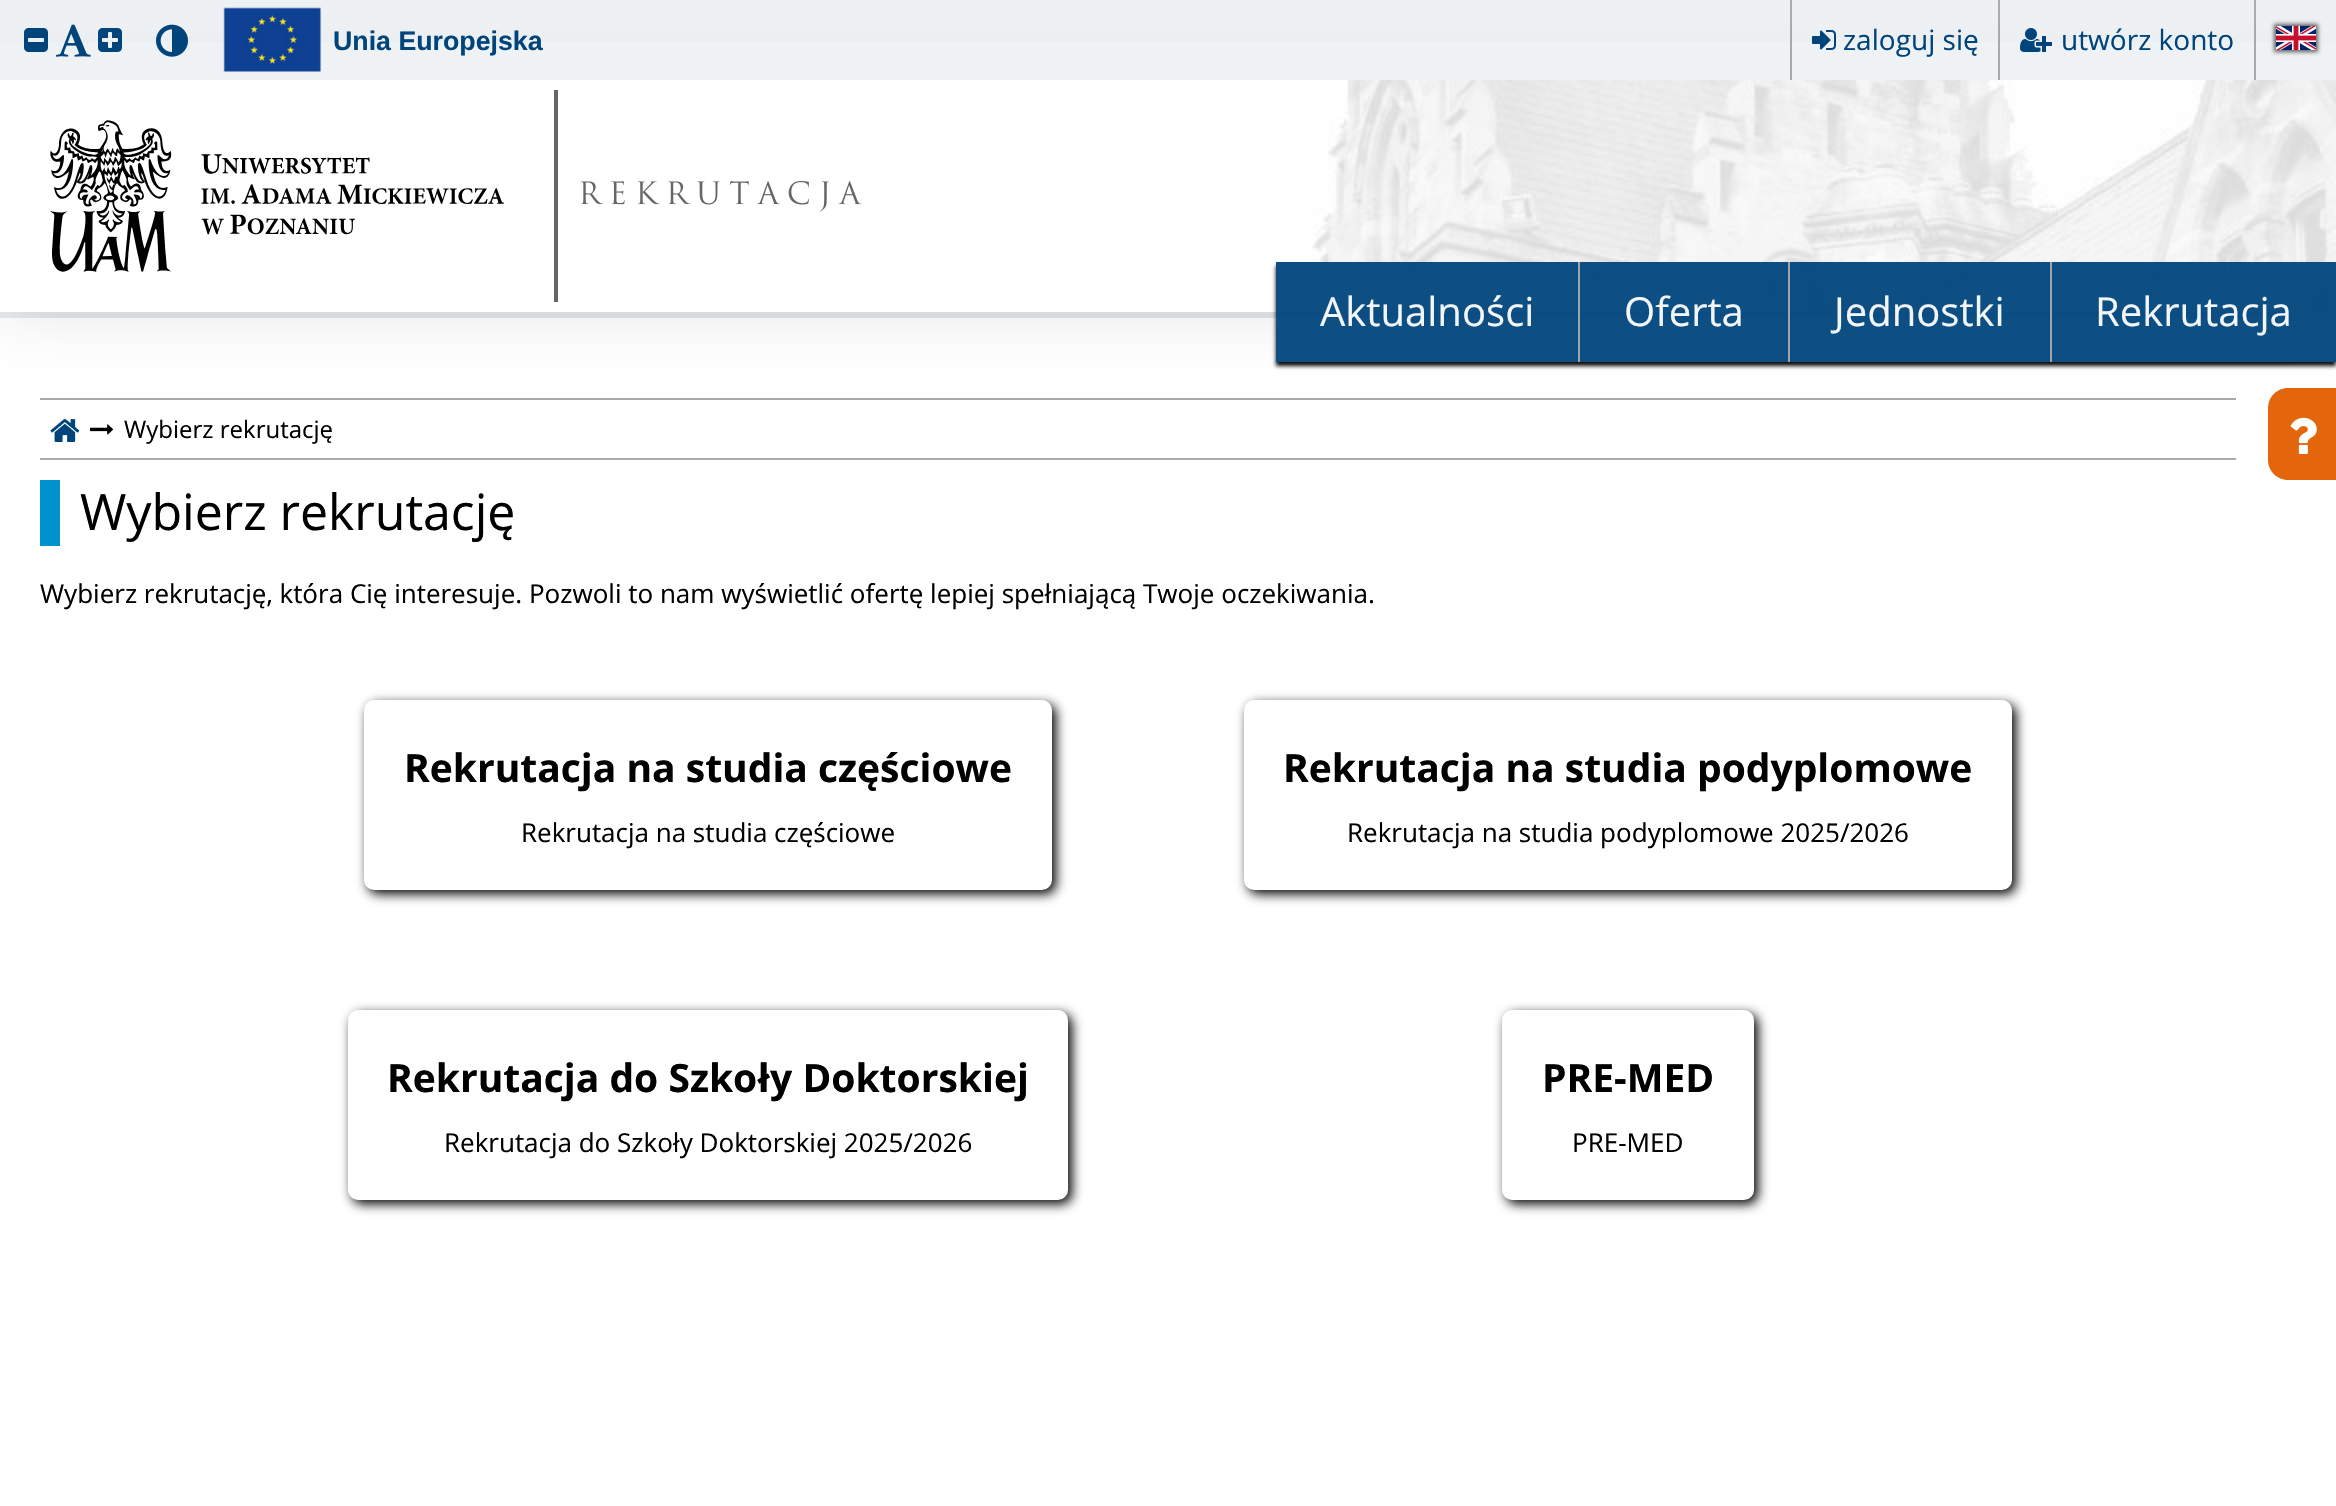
#include "include/core/SkBlurTypes.h"
#include "include/core/SkCanvas.h"
#include "include/core/SkData.h"
#include "include/core/SkFont.h"
#include "include/core/SkFontMgr.h"
#include "include/core/SkImage.h"
#include "include/core/SkMaskFilter.h"
#include "include/core/SkPaint.h"
#include "include/core/SkPathBuilder.h"
#include "include/core/SkTextBlob.h"
#include "include/effects/SkDashPathEffect.h"
#include "include/effects/SkGradientShader.h"
#include "include/utils/SkParsePath.h"

extern sk_sp<SkFontMgr> fontMgr;

void draw(SkCanvas* canvas) {
    SkPaint p;
    p.setAntiAlias(true);
    auto font = [&](const char* family, int weight, float size, bool italic = false) {
        SkFontStyle style(weight, SkFontStyle::kNormal_Width,
            italic ? SkFontStyle::kItalic_Slant : SkFontStyle::kUpright_Slant);
        SkFont result(fontMgr->matchFamilyStyle(family, style), size);
        result.setSubpixel(true);
        return result;
    };
    auto drawPhoto = [&](const char* path, float l, float t, float r, float b) {
        auto image = SkImages::DeferredFromEncodedData(SkData::MakeFromFileName(path));
        canvas->drawImageRect(image, SkRect::MakeLTRB(l, t, r, b), SkSamplingOptions());
    };
    canvas->clear(0xFFEFF2F4);
    p.setColor(0x1A000000);
    p.setMaskFilter(SkMaskFilter::MakeBlur(kNormal_SkBlurStyle, 30));
    canvas->drawRect(SkRect::MakeLTRB(0, 318, 2336, 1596), p);
    p.setMaskFilter(nullptr);
    p.setColor(0xFFFFFFFF);
    canvas->drawRect(SkRect::MakeLTRB(0, 318, 2336, 1506), p);
    p.setColor(0xFFAAAAAA);
    canvas->drawRect(SkRect::MakeLTRB(40, 398, 2236, 400), p);
    p.setColor(0xFFE4660C);
    canvas->drawPath(SkPathBuilder().moveTo(2288, 388).lineTo(2336, 388).lineTo(2336, 480).lineTo(2288, 480).cubicTo(2277, 480, 2268, 471, 2268, 460).lineTo(2268, 408).cubicTo(2268, 397, 2277, 388, 2288, 388).close().detach(), p);
    p.setColor(0x1A000000);
    p.setMaskFilter(SkMaskFilter::MakeBlur(kNormal_SkBlurStyle, 30));
    canvas->drawRect(SkRect::MakeLTRB(0, 80, 2336, 312), p);
    p.setMaskFilter(nullptr);
    p.setColor(0xFFFFFFFF);
    canvas->drawRect(SkRect::MakeLTRB(0, 80, 1306, 312), p);
    drawPhoto("media/1.png", 1306, 80, 2336, 312);
    p.setColor(0xFF666666);
    canvas->drawRect(SkRect::MakeLTRB(554, 90, 558, 302), p);
    drawPhoto("media/2.png", 50, 120, 504, 272);
    drawPhoto("media/3.png", 580, 181, 862, 212);
    p.setColor(0xFFEFF2F4);
    canvas->drawRect(SkRect::MakeLTRB(0, 42, 2336, 80), p);
    drawPhoto("media/4.png", 24, 28, 48, 52);
    drawPhoto("media/5.png", 56, 24, 91, 57);
    drawPhoto("media/6.png", 98, 28, 122, 52);
    drawPhoto("media/7.png", 156, 24, 188, 57);
    drawPhoto("media/8.png", 223, 7, 322, 72);
    auto font1 = font("Liberation Sans", 700, 26.75f);
    p.setColor(0xFF00447C);
    canvas->drawString("Unia Europejska", 333, 50, font1, p);
    p.setColor(0xFFAAAAAA);
    canvas->drawRect(SkRect::MakeLTRB(1998, 0, 2000, 80), p);
    canvas->drawRect(SkRect::MakeLTRB(1790, 0, 1792, 80), p);
    drawPhoto("media/9.png", 1812, 30, 1836, 50);
    auto font2 = font("Open Sans", 400, 28);
    p.setColor(0xFF00447C);
    canvas->drawString("zaloguj się", 1843, 50, font2, p);
    p.setColor(0xFFAAAAAA);
    canvas->drawRect(SkRect::MakeLTRB(2254, 0, 2256, 80), p);
    drawPhoto("media/10.png", 2020, 28, 2052, 52);
    p.setColor(0xFF00447C);
    canvas->drawString("utwórz konto", 2061, 50, font2, p);
    p.setColor(0x99000000);
    p.setMaskFilter(SkMaskFilter::MakeBlur(kNormal_SkBlurStyle, 2));
    canvas->drawRect(SkRect::MakeLTRB(2274, 24, 2318, 52), p);
    p.setMaskFilter(nullptr);
    drawPhoto("media/11.png", 2276, 26, 2316, 50);
    canvas->save();
    canvas->clipPath(SkPathBuilder(SkPathFillType::kEvenOdd).moveTo(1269, 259).lineTo(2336, 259).lineTo(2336, 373).lineTo(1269, 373).close().moveTo(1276, 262).lineTo(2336, 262).lineTo(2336, 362).lineTo(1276, 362).close().detach(), true);
    p.setColor(0xF2000000);
    p.setMaskFilter(SkMaskFilter::MakeBlur(kNormal_SkBlurStyle, 2));
    canvas->drawRect(SkRect::MakeLTRB(1276, 266, 2336, 366), p);
    p.setMaskFilter(nullptr);
    canvas->restore();
    p.setColor(0xF200447C);
    canvas->drawRect(SkRect::MakeLTRB(1276, 262, 2336, 362), p);
    p.setColor(0xFFA2A5A8);
    canvas->drawRect(SkRect::MakeLTRB(1578, 262, 1580, 362), p);
    auto font3 = font("Open Sans", 400, 40);
    p.setColor(0xFFF3F6F9);
    canvas->drawString("Aktualności", 1320, 326, font3, p);
    p.setColor(0xFFA2A5A8);
    canvas->drawRect(SkRect::MakeLTRB(1788, 262, 1790, 362), p);
    p.setColor(0xFFF3F6F9);
    canvas->drawString("Oferta", 1624, 326, font3, p);
    p.setColor(0xFFA2A5A8);
    canvas->drawRect(SkRect::MakeLTRB(2050, 262, 2052, 362), p);
    p.setColor(0xFFF3F6F9);
    canvas->drawString("Jednostki", 1834, 326, font3, p);
    canvas->drawString("Rekrutacja", 2095, 326, font3, p);
    p.setColor(0xFFAAAAAA);
    canvas->drawRect(SkRect::MakeLTRB(40, 458, 2236, 460), p);
    drawPhoto("media/12.png", 50, 419, 80, 442);
    drawPhoto("media/13.png", 90, 424, 114, 435);
    auto font4 = font("Open Sans", 400, 24);
    p.setColor(0xFF000000);
    canvas->drawString("Wybierz rekrutację", 124, 438, font4, p);
    p.setColor(0xFF0092CE);
    canvas->drawRect(SkRect::MakeLTRB(40, 480, 60, 546), p);
    auto font5 = font("Open Sans", 400, 50);
    p.setColor(0xFF000000);
    canvas->drawString("Wybierz rekrutację", 80, 530, font5, p);
    auto font6 = font("Open Sans", 400, 26);
    canvas->drawString("Wybierz rekrutację, która Cię interesuje. Pozwoli to nam wyświetlić ofertę lepiej spełniającą Twoje oczekiwania.", 40, 603, font6, p);
    p.setMaskFilter(SkMaskFilter::MakeBlur(kNormal_SkBlurStyle, 6));
    canvas->drawRoundRect(SkRect::MakeLTRB(368, 704, 1056, 894), 10, 10, p);
    p.setMaskFilter(nullptr);
    p.setColor(0xFFFFFFFF);
    canvas->drawRoundRect(SkRect::MakeLTRB(364, 700, 1052, 890), 10, 10, p);
    auto font7 = font("Open Sans", 700, 39);
    p.setColor(0xFF000000);
    canvas->drawString("Rekrutacja na studia częściowe", 404, 782, font7, p);
    canvas->drawString("Rekrutacja na studia częściowe", 521, 842, font6, p);
    p.setMaskFilter(SkMaskFilter::MakeBlur(kNormal_SkBlurStyle, 6));
    canvas->drawRoundRect(SkRect::MakeLTRB(1248, 704, 2016, 894), 10, 10, p);
    p.setMaskFilter(nullptr);
    p.setColor(0xFFFFFFFF);
    canvas->drawRoundRect(SkRect::MakeLTRB(1244, 700, 2012, 890), 10, 10, p);
    p.setColor(0xFF000000);
    canvas->drawString("Rekrutacja na studia podyplomowe", 1283, 782, font7, p);
    canvas->drawString("Rekrutacja na studia podyplomowe 2025/2026", 1347, 842, font6, p);
    p.setMaskFilter(SkMaskFilter::MakeBlur(kNormal_SkBlurStyle, 6));
    canvas->drawRoundRect(SkRect::MakeLTRB(352, 1014, 1072, 1204), 10, 10, p);
    p.setMaskFilter(nullptr);
    p.setColor(0xFFFFFFFF);
    canvas->drawRoundRect(SkRect::MakeLTRB(348, 1010, 1068, 1200), 10, 10, p);
    p.setColor(0xFF000000);
    canvas->drawString("Rekrutacja do Szkoły Doktorskiej", 387, 1092, font7, p);
    canvas->drawString("Rekrutacja do Szkoły Doktorskiej 2025/2026", 444, 1152, font6, p);
    p.setMaskFilter(SkMaskFilter::MakeBlur(kNormal_SkBlurStyle, 6));
    canvas->drawRoundRect(SkRect::MakeLTRB(1506, 1014, 1758, 1204), 10, 10, p);
    p.setMaskFilter(nullptr);
    p.setColor(0xFFFFFFFF);
    canvas->drawRoundRect(SkRect::MakeLTRB(1502, 1010, 1754, 1200), 10, 10, p);
    p.setColor(0xFF000000);
    canvas->drawString("PRE-MED", 1542, 1092, font7, p);
    canvas->drawString("PRE-MED", 1572, 1152, font6, p);
    drawPhoto("media/14.png", 2290, 417, 2317, 454);
}
